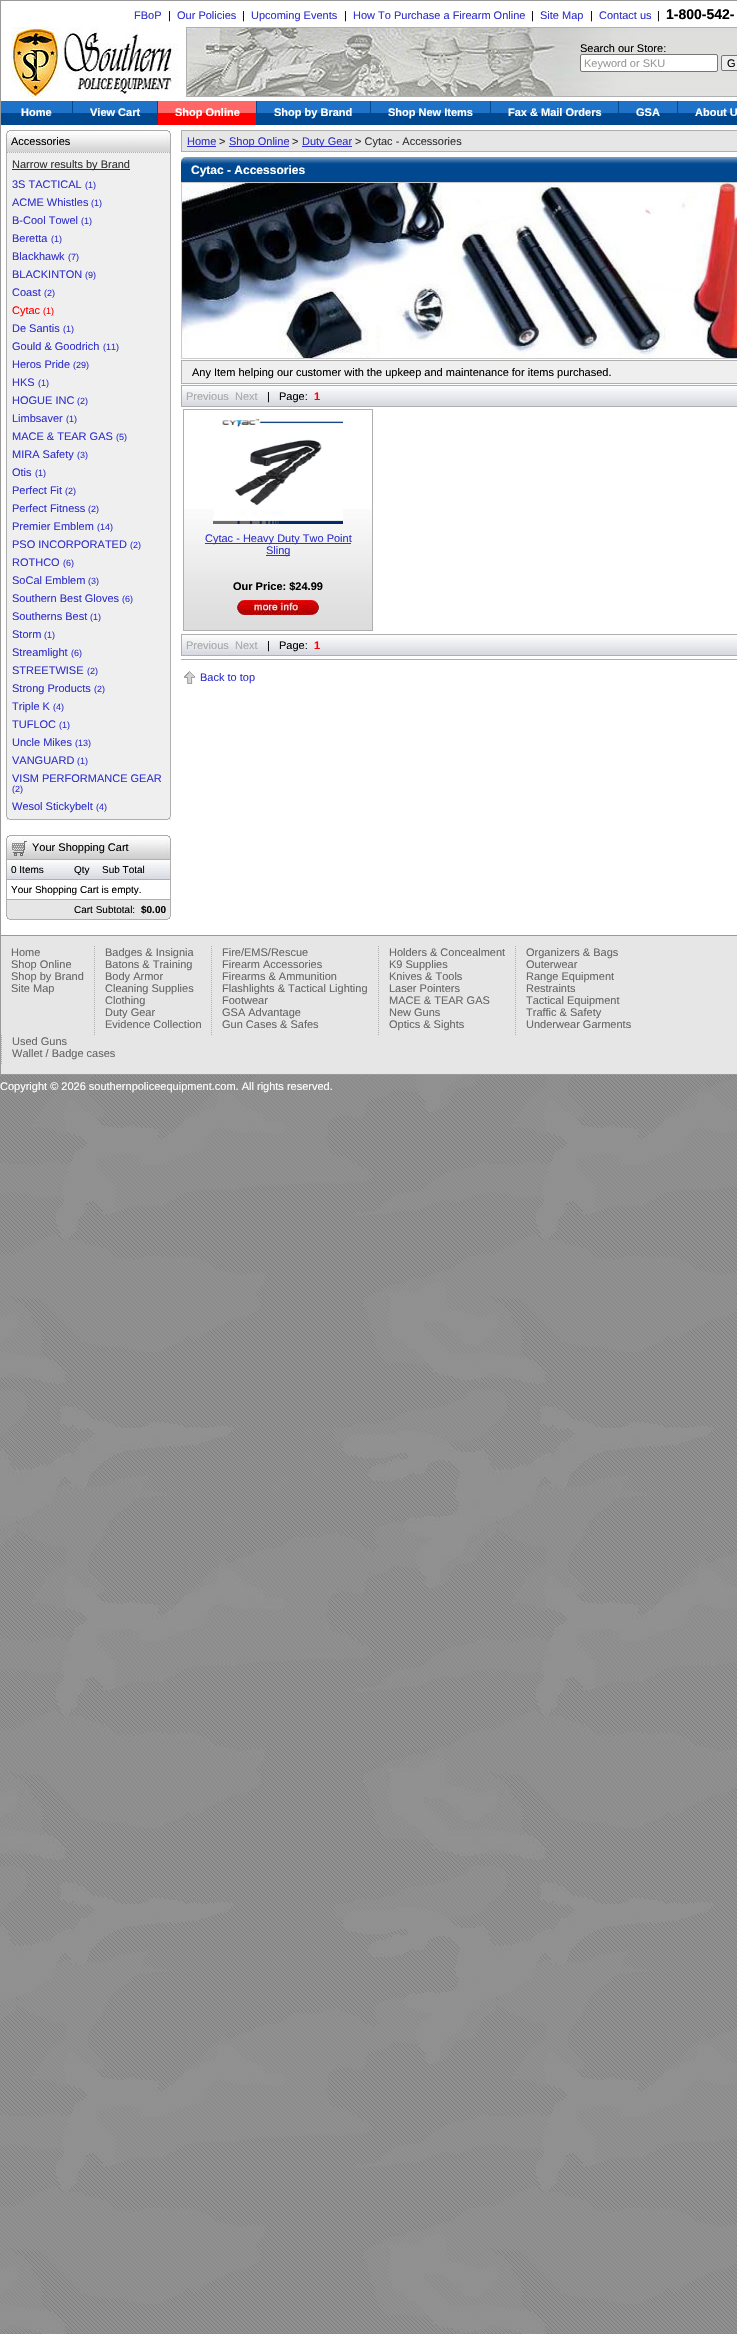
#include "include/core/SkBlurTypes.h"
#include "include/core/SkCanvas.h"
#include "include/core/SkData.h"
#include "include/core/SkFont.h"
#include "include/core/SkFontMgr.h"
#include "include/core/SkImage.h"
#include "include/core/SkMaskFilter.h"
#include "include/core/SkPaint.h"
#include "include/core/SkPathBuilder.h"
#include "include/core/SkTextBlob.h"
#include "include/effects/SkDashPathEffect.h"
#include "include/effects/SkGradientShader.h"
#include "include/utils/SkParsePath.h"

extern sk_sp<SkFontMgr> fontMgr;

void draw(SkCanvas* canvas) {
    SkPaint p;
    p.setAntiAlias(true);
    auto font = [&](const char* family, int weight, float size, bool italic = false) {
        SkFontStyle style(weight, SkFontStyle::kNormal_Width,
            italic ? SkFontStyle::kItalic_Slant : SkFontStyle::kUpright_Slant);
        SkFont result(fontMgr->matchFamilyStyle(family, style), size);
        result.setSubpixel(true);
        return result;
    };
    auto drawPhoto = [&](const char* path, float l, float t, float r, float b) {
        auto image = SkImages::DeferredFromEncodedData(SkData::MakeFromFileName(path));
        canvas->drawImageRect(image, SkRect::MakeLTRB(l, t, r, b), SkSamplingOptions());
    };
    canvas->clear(0xFFFFFFFF);
    drawPhoto("media/1.png", 0, 1075, 737, 2334);
    p.setColor(0xFF999999);
    canvas->drawRect(SkRect::MakeLTRB(0, 0, 737, 1), p);
    canvas->drawRect(SkRect::MakeLTRB(0, 0, 1, 935), p);
    auto font1 = font("Liberation Sans", 400, 11);
    p.setColor(0xFF3333CC);
    canvas->drawString("FBoP", 134, 19, font1, p);
    p.setColor(0xFF000000);
    canvas->drawString("|", 168, 19, font1, p);
    p.setColor(0xFF3333CC);
    canvas->drawString("Our Policies", 177, 19, font1, p);
    p.setColor(0xFF000000);
    canvas->drawString("|", 242, 19, font1, p);
    p.setColor(0xFF3333CC);
    canvas->drawString("Upcoming Events", 251, 19, font1, p);
    p.setColor(0xFF000000);
    canvas->drawString("|", 344, 19, font1, p);
    p.setColor(0xFF3333CC);
    canvas->drawString("How To Purchase a Firearm Online", 353, 19, font1, p);
    p.setColor(0xFF000000);
    canvas->drawString("|", 531, 19, font1, p);
    p.setColor(0xFF3333CC);
    canvas->drawString("Site Map", 540, 19, font1, p);
    p.setColor(0xFF000000);
    canvas->drawString("|", 590, 19, font1, p);
    p.setColor(0xFF3333CC);
    canvas->drawString("Contact us", 599, 19, font1, p);
    p.setColor(0xFF000000);
    canvas->drawString("|", 657, 19, font1, p);
    auto font2 = font("Liberation Sans", 700, 14);
    canvas->drawString("1-800-542-", 666, 19, font2, p);
    drawPhoto("media/2.png", 11, 27, 179, 97);
    drawPhoto("media/3.png", 187, 28, 737, 96);
    p.setStyle(SkPaint::kStroke_Style);
    p.setStrokeWidth(1);
    p.setColor(0xFFAFAFAF);
    canvas->drawRect(SkRect::MakeLTRB(186.5f, 27.5f, 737.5f, 96.5f), p);
    p.setStyle(SkPaint::kFill_Style);
    p.setColor(0xFF000000);
    canvas->drawString("Search our Store:", 580, 52, font1, p);
    p.setColor(0xFFFFFFFF);
    canvas->drawRoundRect(SkRect::MakeLTRB(580.5f, 54.5f, 717.5f, 71.5f), 1.5f, 1.5f, p);
    p.setStyle(SkPaint::kStroke_Style);
    p.setColor(0xFF767676);
    canvas->drawRoundRect(SkRect::MakeLTRB(580.5f, 54.5f, 717.5f, 71.5f), 1.5f, 1.5f, p);
    p.setStyle(SkPaint::kFill_Style);
    p.setColor(0xFF999999);
    canvas->drawString("Keyword or SKU", 584, 67, font1, p);
    p.setColor(0xFFEFEFEF);
    canvas->drawRoundRect(SkRect::MakeLTRB(721.5f, 55.5f, 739.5f, 70.5f), 1.5f, 1.5f, p);
    p.setStyle(SkPaint::kStroke_Style);
    p.setColor(0xFF767676);
    canvas->drawRoundRect(SkRect::MakeLTRB(721.5f, 55.5f, 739.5f, 70.5f), 1.5f, 1.5f, p);
    p.setStyle(SkPaint::kFill_Style);
    p.setColor(0xFF000000);
    canvas->drawString("G", 727, 67, font1, p);
    {
        const struct { float l, t, r, b; SkColor color; } items[] = {
            {1, 113, 72, 125, 0xFF004890},
            {1, 101, 72, 113, 0xFF1E72C8},
            {72, 101, 73, 125, 0xFF004890},
        };
        for (auto [l, t, r, b, color] : items) {
            p.setColor(color);
            canvas->drawRect(SkRect::MakeLTRB(l, t, r, b), p);
        }
    }
    auto font3 = font("Liberation Sans", 700, 11);
    p.setColor(0xFFFFFFFF);
    canvas->drawString("Home", 21, 116, font3, p);
    {
        const struct { float l, t, r, b; SkColor color; } items[] = {
            {73, 113, 157, 125, 0xFF004890},
            {73, 101, 157, 113, 0xFF1E72C8},
            {157, 101, 158, 125, 0xFF004890},
        };
        for (auto [l, t, r, b, color] : items) {
            p.setColor(color);
            canvas->drawRect(SkRect::MakeLTRB(l, t, r, b), p);
        }
    }
    p.setColor(0xFFFFFFFF);
    canvas->drawString("View Cart", 90, 116, font3, p);
    p.setColor(0xFFFF0000);
    canvas->drawRect(SkRect::MakeLTRB(158, 114, 256, 125), p);
    drawPhoto("media/4.png", 158, 101, 256, 114);
    p.setColor(0xFF004890);
    canvas->drawRect(SkRect::MakeLTRB(256, 101, 257, 125), p);
    p.setColor(0xFFFFFFFF);
    canvas->drawString("Shop Online", 175, 116, font3, p);
    {
        const struct { float l, t, r, b; SkColor color; } items[] = {
            {257, 113, 370, 125, 0xFF004890},
            {257, 101, 370, 113, 0xFF1E72C8},
            {370, 101, 371, 125, 0xFF004890},
        };
        for (auto [l, t, r, b, color] : items) {
            p.setColor(color);
            canvas->drawRect(SkRect::MakeLTRB(l, t, r, b), p);
        }
    }
    p.setColor(0xFFFFFFFF);
    canvas->drawString("Shop by Brand", 274, 116, font3, p);
    {
        const struct { float l, t, r, b; SkColor color; } items[] = {
            {371, 113, 490, 125, 0xFF004890},
            {371, 101, 490, 113, 0xFF1E72C8},
            {490, 101, 491, 125, 0xFF004890},
        };
        for (auto [l, t, r, b, color] : items) {
            p.setColor(color);
            canvas->drawRect(SkRect::MakeLTRB(l, t, r, b), p);
        }
    }
    p.setColor(0xFFFFFFFF);
    canvas->drawString("Shop New Items", 388, 116, font3, p);
    {
        const struct { float l, t, r, b; SkColor color; } items[] = {
            {491, 113, 618, 125, 0xFF004890},
            {491, 101, 618, 113, 0xFF1E72C8},
            {618, 101, 619, 125, 0xFF004890},
        };
        for (auto [l, t, r, b, color] : items) {
            p.setColor(color);
            canvas->drawRect(SkRect::MakeLTRB(l, t, r, b), p);
        }
    }
    p.setColor(0xFFFFFFFF);
    canvas->drawString("Fax & Mail Orders", 508, 116, font3, p);
    {
        const struct { float l, t, r, b; SkColor color; } items[] = {
            {619, 113, 677, 125, 0xFF004890},
            {619, 101, 677, 113, 0xFF1E72C8},
            {677, 101, 678, 125, 0xFF004890},
        };
        for (auto [l, t, r, b, color] : items) {
            p.setColor(color);
            canvas->drawRect(SkRect::MakeLTRB(l, t, r, b), p);
        }
    }
    p.setColor(0xFFFFFFFF);
    canvas->drawString("GSA", 636, 116, font3, p);
    p.setColor(0xFF004890);
    canvas->drawRect(SkRect::MakeLTRB(678, 113, 737, 125), p);
    p.setColor(0xFF1E72C8);
    canvas->drawRect(SkRect::MakeLTRB(678, 101, 737, 113), p);
    p.setColor(0xFFFFFFFF);
    canvas->drawString("About U", 695, 116, font3, p);
    drawPhoto("media/5.png", 6, 130, 171, 152);
    p.setColor(0xFF000000);
    canvas->drawString("Accessories", 11, 145, font1, p);
    {
        const struct { float l, t, r, b; SkColor color; } items[] = {
            {7, 152, 170, 815, 0xFFEFEFEF},
            {170, 152, 171, 815, 0xFFAFAFAF},
            {6, 152, 7, 815, 0xFFAFAFAF},
        };
        for (auto [l, t, r, b, color] : items) {
            p.setColor(color);
            canvas->drawRect(SkRect::MakeLTRB(l, t, r, b), p);
        }
    }
    p.setStyle(SkPaint::kStroke_Style);
    p.setPathEffect(SkDashPathEffect::Make({{1, 1}}, 0));
    canvas->drawPath(SkPathBuilder().moveTo(7, 152.5f).lineTo(170, 152.5f).detach(), p);
    p.setPathEffect(nullptr);
    p.setStyle(SkPaint::kFill_Style);
    p.setColor(0xFF333333);
    canvas->drawRect(SkRect::MakeLTRB(12, 169, 130, 170), p);
    canvas->drawString("Narrow results by Brand", 12, 168, font1, p);
    p.setColor(0xFF3333CC);
    canvas->drawString("3S TACTICAL", 12, 188, font1, p);
    auto font4 = font("Liberation Sans", 400, 9);
    canvas->drawString("(1)", 85, 188, font4, p);
    canvas->drawString("ACME Whistles", 12, 206, font1, p);
    canvas->drawString("(1)", 91, 206, font4, p);
    canvas->drawString("B-Cool Towel", 12, 224, font1, p);
    canvas->drawString("(1)", 81, 224, font4, p);
    canvas->drawString("Beretta", 12, 242, font1, p);
    canvas->drawString("(1)", 51, 242, font4, p);
    canvas->drawString("Blackhawk", 12, 260, font1, p);
    canvas->drawString("(7)", 68, 260, font4, p);
    canvas->drawString("BLACKINTON", 12, 278, font1, p);
    canvas->drawString("(9)", 85, 278, font4, p);
    canvas->drawString("Coast", 12, 296, font1, p);
    canvas->drawString("(2)", 44, 296, font4, p);
    p.setColor(0xFFFF0000);
    canvas->drawString("Cytac", 12, 314, font1, p);
    canvas->drawString("(1)", 43, 314, font4, p);
    p.setColor(0xFF3333CC);
    canvas->drawString("De Santis", 12, 332, font1, p);
    canvas->drawString("(1)", 63, 332, font4, p);
    canvas->drawString("Gould & Goodrich", 12, 350, font1, p);
    canvas->drawString("(11)", 103, 350, font4, p);
    canvas->drawString("Heros Pride", 12, 368, font1, p);
    canvas->drawString("(29)", 73, 368, font4, p);
    canvas->drawString("HKS", 12, 386, font1, p);
    canvas->drawString("(1)", 38, 386, font4, p);
    canvas->drawString("HOGUE INC", 12, 404, font1, p);
    canvas->drawString("(2)", 77, 404, font4, p);
    canvas->drawString("Limbsaver", 12, 422, font1, p);
    canvas->drawString("(1)", 66, 422, font4, p);
    canvas->drawString("MACE & TEAR GAS", 12, 440, font1, p);
    canvas->drawString("(5)", 116, 440, font4, p);
    canvas->drawString("MIRA Safety", 12, 458, font1, p);
    canvas->drawString("(3)", 77, 458, font4, p);
    canvas->drawString("Otis", 12, 476, font1, p);
    canvas->drawString("(1)", 35, 476, font4, p);
    canvas->drawString("Perfect Fit", 12, 494, font1, p);
    canvas->drawString("(2)", 65, 494, font4, p);
    canvas->drawString("Perfect Fitness", 12, 512, font1, p);
    canvas->drawString("(2)", 88, 512, font4, p);
    canvas->drawString("Premier Emblem", 12, 530, font1, p);
    canvas->drawString("(14)", 97, 530, font4, p);
    canvas->drawString("PSO INCORPORATED", 12, 548, font1, p);
    canvas->drawString("(2)", 130, 548, font4, p);
    canvas->drawString("ROTHCO", 12, 566, font1, p);
    canvas->drawString("(6)", 63, 566, font4, p);
    canvas->drawString("SoCal Emblem", 12, 584, font1, p);
    canvas->drawString("(3)", 88, 584, font4, p);
    canvas->drawString("Southern Best Gloves", 12, 602, font1, p);
    canvas->drawString("(6)", 122, 602, font4, p);
    canvas->drawString("Southerns Best", 12, 620, font1, p);
    canvas->drawString("(1)", 90, 620, font4, p);
    canvas->drawString("Storm", 12, 638, font1, p);
    canvas->drawString("(1)", 44, 638, font4, p);
    canvas->drawString("Streamlight", 12, 656, font1, p);
    canvas->drawString("(6)", 71, 656, font4, p);
    canvas->drawString("STREETWISE", 12, 674, font1, p);
    canvas->drawString("(2)", 87, 674, font4, p);
    canvas->drawString("Strong Products", 12, 692, font1, p);
    canvas->drawString("(2)", 94, 692, font4, p);
    canvas->drawString("Triple K", 12, 710, font1, p);
    canvas->drawString("(4)", 53, 710, font4, p);
    canvas->drawString("TUFLOC", 12, 728, font1, p);
    canvas->drawString("(1)", 59, 728, font4, p);
    canvas->drawString("Uncle Mikes", 12, 746, font1, p);
    canvas->drawString("(13)", 75, 746, font4, p);
    canvas->drawString("VANGUARD", 12, 764, font1, p);
    canvas->drawString("(1)", 77, 764, font4, p);
    canvas->drawString("VISM PERFORMANCE GEAR", 12, 782, font1, p);
    canvas->drawString("(2)", 12, 792, font4, p);
    canvas->drawString("Wesol Stickybelt", 12, 810, font1, p);
    canvas->drawString("(4)", 96, 810, font4, p);
    p.setColor(0xFFEFEFEF);
    canvas->drawRect(SkRect::MakeLTRB(6, 817, 171, 820), p);
    drawPhoto("media/6.png", 6, 815, 171, 820);
    drawPhoto("media/7.png", 6, 835, 171, 859);
    p.setColor(0xFFAFAFAF);
    canvas->drawRect(SkRect::MakeLTRB(6, 859, 171, 860), p);
    p.setColor(0xFF000000);
    canvas->drawString("Your Shopping Cart", 32, 851, font1, p);
    p.setColor(0xFFAFAFAF);
    canvas->drawRect(SkRect::MakeLTRB(170, 860, 171, 915), p);
    canvas->drawRect(SkRect::MakeLTRB(6, 860, 7, 915), p);
    drawPhoto("media/8.png", 7, 860, 65, 879);
    canvas->drawRect(SkRect::MakeLTRB(7, 879, 170, 880), p);
    auto font5 = font("Liberation Sans", 400, 10);
    p.setColor(0xFF000000);
    canvas->drawString("0 Items", 11, 873, font5, p);
    drawPhoto("media/9.png", 65, 860, 98, 879);
    canvas->drawString("Qty", 74, 873, font5, p);
    drawPhoto("media/10.png", 98, 860, 170, 879);
    canvas->drawString("Sub Total", 102, 873, font5, p);
    canvas->drawString("Your Shopping Cart is empty.", 11, 893, font5, p);
    p.setColor(0xFFE6E6E6);
    canvas->drawRect(SkRect::MakeLTRB(7, 900, 170, 915), p);
    p.setColor(0xFFAFAFAF);
    canvas->drawRect(SkRect::MakeLTRB(7, 899, 170, 900), p);
    p.setColor(0xFF000000);
    canvas->drawString("Cart Subtotal:", 74, 913, font5, p);
    auto font6 = font("Liberation Sans", 700, 10);
    canvas->drawString("$0.00", 141, 913, font6, p);
    drawPhoto("media/11.png", 6, 915, 171, 920);
    p.setColor(0xFFE6E6E6);
    canvas->drawRect(SkRect::MakeLTRB(181.5f, 130.5f, 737.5f, 151.5f), p);
    p.setStyle(SkPaint::kStroke_Style);
    p.setColor(0xFFAFAFAF);
    canvas->drawRect(SkRect::MakeLTRB(181.5f, 130.5f, 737.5f, 151.5f), p);
    p.setStyle(SkPaint::kFill_Style);
    p.setColor(0xFF3333CC);
    canvas->drawString("Home", 187, 145, font1, p);
    canvas->drawRect(SkRect::MakeLTRB(187, 146, 216, 147), p);
    p.setColor(0xFF333333);
    canvas->drawString(">", 219, 145, font1, p);
    p.setColor(0xFF3333CC);
    canvas->drawRect(SkRect::MakeLTRB(229, 146, 289, 147), p);
    canvas->drawString("Shop Online", 229, 145, font1, p);
    p.setColor(0xFF333333);
    canvas->drawString(">", 292, 145, font1, p);
    p.setColor(0xFF3333CC);
    canvas->drawRect(SkRect::MakeLTRB(302, 146, 352, 147), p);
    canvas->drawString("Duty Gear", 302, 145, font1, p);
    p.setColor(0xFF333333);
    canvas->drawString("> Cytac - Accessories", 355, 145, font1, p);
    p.setColor(0xFF004890);
    canvas->drawRect(SkRect::MakeLTRB(181, 164, 737, 182), p);
    drawPhoto("media/12.png", 181, 157, 737, 164);
    auto font7 = font("Liberation Sans", 700, 12);
    p.setColor(0xFFFFFFFF);
    canvas->drawString("Cytac - Accessories", 191, 174, font7, p);
    drawPhoto("media/13.png", 181, 182, 737, 359);
    p.setColor(0xFFEFEFEF);
    canvas->drawRect(SkRect::MakeLTRB(181.5f, 360.5f, 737.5f, 383.5f), p);
    p.setStyle(SkPaint::kStroke_Style);
    p.setColor(0xFFAFAFAF);
    canvas->drawRect(SkRect::MakeLTRB(181.5f, 360.5f, 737.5f, 383.5f), p);
    p.setStyle(SkPaint::kFill_Style);
    p.setColor(0xFF000000);
    canvas->drawString("Any Item helping our customer with the upkeep and maintenance for items purchased.", 192, 376, font1, p);
    drawPhoto("media/14.png", 182, 386, 737, 406);
    p.setStyle(SkPaint::kStroke_Style);
    p.setColor(0xFFAFAFAF);
    canvas->drawRect(SkRect::MakeLTRB(181.5f, 385.5f, 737.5f, 406.5f), p);
    p.setStyle(SkPaint::kFill_Style);
    p.setColor(0xFFA8A8A8);
    canvas->drawString("Previous", 186, 400, font1, p);
    canvas->drawString("Next", 235, 400, font1, p);
    p.setColor(0xFF000000);
    canvas->drawString("|   Page:", 267, 400, font1, p);
    p.setColor(0xFFFF0000);
    canvas->drawString("1", 314, 400, font3, p);
    drawPhoto("media/15.png", 184, 509, 372, 630);
    p.setStyle(SkPaint::kStroke_Style);
    p.setColor(0xFFAFAFAF);
    canvas->drawRect(SkRect::MakeLTRB(183.5f, 409.5f, 372.5f, 630.5f), p);
    drawPhoto("media/16.png", 213, 418, 343, 524);
    p.setStyle(SkPaint::kFill_Style);
    p.setColor(0xFF3333CC);
    canvas->drawRect(SkRect::MakeLTRB(205, 543, 351, 544), p);
    canvas->drawString("Cytac - Heavy Duty Two Point", 205, 542, font1, p);
    canvas->drawRect(SkRect::MakeLTRB(266, 555, 290, 556), p);
    canvas->drawString("Sling", 266, 554, font1, p);
    p.setColor(0xFF000000);
    canvas->drawString("Our Price: $24.99", 233, 590, font3, p);
    drawPhoto("media/17.png", 237, 600, 319, 615);
    drawPhoto("media/14.png", 182, 635, 737, 655);
    p.setStyle(SkPaint::kStroke_Style);
    p.setColor(0xFFAFAFAF);
    canvas->drawRect(SkRect::MakeLTRB(181.5f, 634.5f, 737.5f, 655.5f), p);
    p.setStyle(SkPaint::kFill_Style);
    p.setColor(0xFFA8A8A8);
    canvas->drawString("Previous", 186, 649, font1, p);
    canvas->drawString("Next", 235, 649, font1, p);
    p.setColor(0xFF000000);
    canvas->drawString("|   Page:", 267, 649, font1, p);
    p.setColor(0xFFFF0000);
    canvas->drawString("1", 314, 649, font3, p);
    p.setColor(0xFFAFAFAF);
    canvas->drawRect(SkRect::MakeLTRB(181, 659, 737, 660), p);
    drawPhoto("media/18.png", 184, 671, 195, 684);
    p.setColor(0xFF3333CC);
    canvas->drawString("Back to top", 200, 681, font1, p);
    p.setColor(0xFFE6E6E6);
    canvas->drawRect(SkRect::MakeLTRB(0.5f, 935.5f, 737.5f, 1074.5f), p);
    p.setStyle(SkPaint::kStroke_Style);
    p.setColor(0xFF999999);
    canvas->drawRect(SkRect::MakeLTRB(0.5f, 935.5f, 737.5f, 1074.5f), p);
    p.setStyle(SkPaint::kFill_Style);
    p.setColor(0xFF666666);
    {
        const struct { const char* s; float x, y; } items[] = {
            {"Home", 11, 956},
            {"Shop Online", 11, 968},
            {"Shop by Brand", 11, 980},
            {"Site Map", 11, 992},
        };
        for (auto [s, x, y] : items) {
            canvas->drawString(s, x, y, font1, p);
        }
    }
    p.setStyle(SkPaint::kStroke_Style);
    p.setColor(0xFFAFAFAF);
    p.setPathEffect(SkDashPathEffect::Make({{1, 1}}, 0));
    canvas->drawPath(SkPathBuilder().moveTo(94.5f, 946).lineTo(94.5f, 1035).detach(), p);
    p.setPathEffect(nullptr);
    p.setStyle(SkPaint::kFill_Style);
    p.setColor(0xFF666666);
    {
        const struct { const char* s; float x, y; } items[] = {
            {"Badges & Insignia", 105, 956},
            {"Batons & Training", 105, 968},
            {"Body Armor", 105, 980},
            {"Cleaning Supplies", 105, 992},
            {"Clothing", 105, 1004},
            {"Duty Gear", 105, 1016},
            {"Evidence Collection", 105, 1028},
        };
        for (auto [s, x, y] : items) {
            canvas->drawString(s, x, y, font1, p);
        }
    }
    p.setStyle(SkPaint::kStroke_Style);
    p.setColor(0xFFAFAFAF);
    p.setPathEffect(SkDashPathEffect::Make({{1, 1}}, 0));
    canvas->drawPath(SkPathBuilder().moveTo(211.5f, 946).lineTo(211.5f, 1035).detach(), p);
    p.setPathEffect(nullptr);
    p.setStyle(SkPaint::kFill_Style);
    p.setColor(0xFF666666);
    {
        const struct { const char* s; float x, y; } items[] = {
            {"Fire/EMS/Rescue", 222, 956},
            {"Firearm Accessories", 222, 968},
            {"Firearms & Ammunition", 222, 980},
            {"Flashlights & Tactical Lighting", 222, 992},
            {"Footwear", 222, 1004},
            {"GSA Advantage", 222, 1016},
            {"Gun Cases & Safes", 222, 1028},
        };
        for (auto [s, x, y] : items) {
            canvas->drawString(s, x, y, font1, p);
        }
    }
    p.setStyle(SkPaint::kStroke_Style);
    p.setColor(0xFFAFAFAF);
    p.setPathEffect(SkDashPathEffect::Make({{1, 1}}, 0));
    canvas->drawPath(SkPathBuilder().moveTo(378.5f, 946).lineTo(378.5f, 1035).detach(), p);
    p.setPathEffect(nullptr);
    p.setStyle(SkPaint::kFill_Style);
    p.setColor(0xFF666666);
    {
        const struct { const char* s; float x, y; } items[] = {
            {"Holders & Concealment", 389, 956},
            {"K9 Supplies", 389, 968},
            {"Knives & Tools", 389, 980},
            {"Laser Pointers", 389, 992},
            {"MACE & TEAR GAS", 389, 1004},
            {"New Guns", 389, 1016},
            {"Optics & Sights", 389, 1028},
        };
        for (auto [s, x, y] : items) {
            canvas->drawString(s, x, y, font1, p);
        }
    }
    p.setStyle(SkPaint::kStroke_Style);
    p.setColor(0xFFAFAFAF);
    p.setPathEffect(SkDashPathEffect::Make({{1, 1}}, 0));
    canvas->drawPath(SkPathBuilder().moveTo(515.5f, 946).lineTo(515.5f, 1035).detach(), p);
    p.setPathEffect(nullptr);
    p.setStyle(SkPaint::kFill_Style);
    p.setColor(0xFF666666);
    {
        const struct { const char* s; float x, y; } items[] = {
            {"Organizers & Bags", 526, 956},
            {"Outerwear", 526, 968},
            {"Range Equipment", 526, 980},
            {"Restraints", 526, 992},
            {"Tactical Equipment", 526, 1004},
            {"Traffic & Safety", 526, 1016},
            {"Underwear Garments", 526, 1028},
        };
        for (auto [s, x, y] : items) {
            canvas->drawString(s, x, y, font1, p);
        }
    }
    p.setStyle(SkPaint::kStroke_Style);
    p.setColor(0xFFAFAFAF);
    p.setPathEffect(SkDashPathEffect::Make({{1, 1}}, 0));
    canvas->drawPath(SkPathBuilder().moveTo(1.5f, 1035).lineTo(1.5f, 1064).detach(), p);
    p.setPathEffect(nullptr);
    p.setStyle(SkPaint::kFill_Style);
    p.setColor(0xFF666666);
    canvas->drawString("Used Guns", 12, 1045, font1, p);
    canvas->drawString("Wallet / Badge cases", 12, 1057, font1, p);
    p.setColor(0xFFFFFFFF);
    canvas->drawString("Copyright © 2026 southernpoliceequipment.com. All rights reserved.", 0, 1090, font1, p);
}
